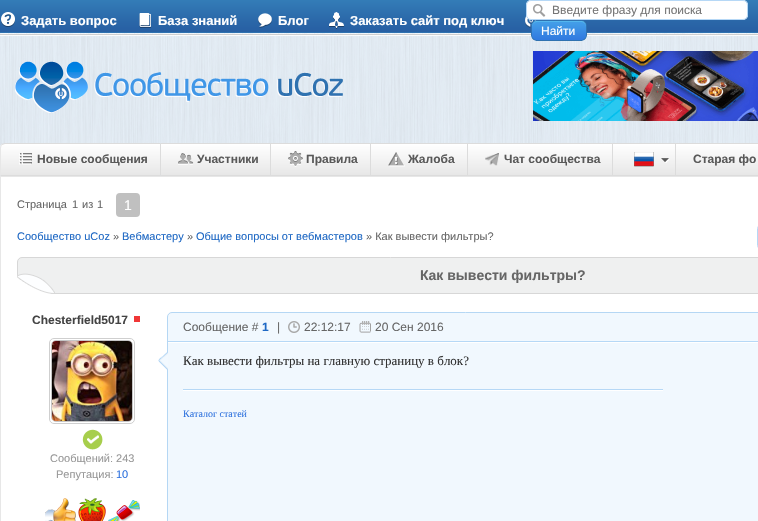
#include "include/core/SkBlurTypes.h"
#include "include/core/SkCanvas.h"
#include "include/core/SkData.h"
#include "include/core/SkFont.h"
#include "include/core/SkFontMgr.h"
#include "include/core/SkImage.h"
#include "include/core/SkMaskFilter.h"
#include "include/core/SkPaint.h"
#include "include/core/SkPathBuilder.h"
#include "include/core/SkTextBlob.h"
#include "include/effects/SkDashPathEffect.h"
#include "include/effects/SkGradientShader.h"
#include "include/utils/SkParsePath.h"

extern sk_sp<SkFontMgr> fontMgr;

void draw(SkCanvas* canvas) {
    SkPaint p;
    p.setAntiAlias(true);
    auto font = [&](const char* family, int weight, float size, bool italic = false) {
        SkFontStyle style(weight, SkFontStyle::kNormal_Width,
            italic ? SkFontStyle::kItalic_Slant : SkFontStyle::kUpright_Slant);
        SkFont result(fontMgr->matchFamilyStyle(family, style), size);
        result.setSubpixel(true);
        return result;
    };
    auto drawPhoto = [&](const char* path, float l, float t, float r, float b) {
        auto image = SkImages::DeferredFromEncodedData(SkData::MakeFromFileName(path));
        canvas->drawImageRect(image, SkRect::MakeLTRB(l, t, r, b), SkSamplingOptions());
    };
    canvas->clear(0xFFFFFFFF);
    drawPhoto("media/1.png", 0, 36, 758, 176);
    drawPhoto("media/2.png", 0, 0, 758, 36);
    drawPhoto("media/3.png", 1, 12, 15, 27);
    auto font1 = font("Liberation Sans", 700, 13);
    p.setColor(0xFFFFFFFF);
    canvas->drawString("Задать вопрос", 21, 25, font1, p);
    drawPhoto("media/4.png", 139, 13, 151, 28);
    canvas->drawString("База знаний", 158, 25, font1, p);
    drawPhoto("media/5.png", 258, 13, 272, 28);
    canvas->drawString("Блог", 278, 25, font1, p);
    drawPhoto("media/6.png", 329, 12, 345, 29);
    canvas->drawString("Заказать сайт под ключ", 350, 25, font1, p);
    drawPhoto("media/7.png", 525, 15, 537, 28);
    canvas->drawRoundRect(SkRect::MakeLTRB(526, 0, 748, 20), 5, 5, p);
    drawPhoto("media/8.png", 532, 4, 546, 17);
    p.setStyle(SkPaint::kStroke_Style);
    p.setStrokeWidth(1);
    p.setColor(0xFFB6D8F6);
    canvas->drawRoundRect(SkRect::MakeLTRB(526.5f, 0.5f, 747.5f, 19.5f), 4.5f, 4.5f, p);
    auto font2 = font("Liberation Sans", 400, 12);
    p.setStyle(SkPaint::kFill_Style);
    p.setColor(0xFF757575);
    canvas->drawString("Введите фразу для поиска", 552, 14, font2, p);
    drawPhoto("media/9.png", 531, 20, 587, 41);
    p.setColor(0xFFFFFFFF);
    canvas->drawString("Найти", 541, 35, font2, p);
    drawPhoto("media/10.png", 15, 61, 343, 113);
    drawPhoto("media/11.png", 533, 51, 758, 121);
    p.setColor(0x2E000000);
    p.setMaskFilter(SkMaskFilter::MakeBlur(kNormal_SkBlurStyle, 1));
    canvas->drawRoundRect(SkRect::MakeLTRB(0, 176, 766, 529), 5, 5, p);
    p.setMaskFilter(nullptr);
    canvas->save();
    canvas->clipPath(SkPathBuilder().moveTo(5, 143).lineTo(161, 143).lineTo(161, 176).lineTo(0, 176).lineTo(0, 148).cubicTo(0, 145, 2, 143, 5, 143).close().detach(), true);
    {
        const SkColor colors[] = {0xFFFFFFFF, 0xFFE7E7E7};
        const float stops[] = {0, 1};
        const SkPoint ends[] = {{81, 144}, {81, 175}};
        p.setShader(SkGradientShader::MakeLinear(ends, colors, stops, 2, SkTileMode::kClamp));
        p.setAlpha(255);
    }
    canvas->drawRect(SkRect::MakeLTRB(0, 144, 160, 175), p);
    canvas->restore();
    p.setShader(nullptr);
    p.setColor(0xFFDCDCDC);
    canvas->drawPath(SkPathBuilder().moveTo(5, 143).cubicTo(4, 143, 2, 144, 1, 144).lineTo(2, 145).lineTo(5, 144).lineTo(160, 144).lineTo(161, 143).close().detach(), p);
    canvas->drawPath(SkPathBuilder().moveTo(161, 143).lineTo(160, 144).lineTo(160, 175).lineTo(161, 176).close().detach(), p);
    canvas->drawPath(SkPathBuilder().moveTo(161, 176).lineTo(160, 175).lineTo(1, 175).lineTo(0, 176).close().detach(), p);
    p.setColor(0xFFE7E7E7);
    canvas->drawPath(SkPathBuilder().moveTo(0, 176).lineTo(1, 175).lineTo(1, 148).cubicTo(1, 147, 1.5f, 146, 2, 145).lineTo(1.5f, 144.5f).cubicTo(0.5f, 145, 0, 146.5f, 0, 148).close().detach(), p);
    drawPhoto("media/12.png", 19, 153, 32, 165);
    auto font3 = font("Liberation Sans", 700, 12);
    p.setColor(0xFF595959);
    canvas->drawString("Новые сообщения", 37, 163, font3, p);
    {
        const SkColor colors[] = {0xFFFFFFFF, 0xFFE7E7E7};
        const float stops[] = {0, 1};
        const SkPoint ends[] = {{216, 144}, {216, 175}};
        p.setShader(SkGradientShader::MakeLinear(ends, colors, stops, 2, SkTileMode::kClamp));
        p.setAlpha(255);
    }
    canvas->drawRect(SkRect::MakeLTRB(161, 144, 270, 175), p);
    p.setShader(nullptr);
    {
        const struct { float l, t, r, b; SkColor color; } items[] = {
            {161, 143, 676, 144, 0xFFDCDCDC},
            {270, 143, 271, 176, 0xFFDCDCDC},
            {161, 175, 271, 176, 0xFFDCDCDC},
        };
        for (auto [l, t, r, b, color] : items) {
            p.setColor(color);
            canvas->drawRect(SkRect::MakeLTRB(l, t, r, b), p);
        }
    }
    drawPhoto("media/13.png", 178, 153, 194, 165);
    p.setColor(0xFF595959);
    canvas->drawString("Участники", 197, 163, font3, p);
    {
        const SkColor colors[] = {0xFFFFFFFF, 0xFFE7E7E7};
        const float stops[] = {0, 1};
        const SkPoint ends[] = {{321, 144}, {321, 175}};
        p.setShader(SkGradientShader::MakeLinear(ends, colors, stops, 2, SkTileMode::kClamp));
        p.setAlpha(255);
    }
    canvas->drawRect(SkRect::MakeLTRB(271, 144, 370, 175), p);
    p.setShader(nullptr);
    p.setColor(0xFFDCDCDC);
    canvas->drawRect(SkRect::MakeLTRB(370, 143, 371, 176), p);
    canvas->drawRect(SkRect::MakeLTRB(271, 175, 371, 176), p);
    drawPhoto("media/14.png", 288, 151, 303, 167);
    p.setColor(0xFF595959);
    canvas->drawString("Правила", 306, 163, font3, p);
    {
        const SkColor colors[] = {0xFFFFFFFF, 0xFFE7E7E7};
        const float stops[] = {0, 1};
        const SkPoint ends[] = {{419, 144}, {419, 175}};
        p.setShader(SkGradientShader::MakeLinear(ends, colors, stops, 2, SkTileMode::kClamp));
        p.setAlpha(255);
    }
    canvas->drawRect(SkRect::MakeLTRB(371, 144, 467, 175), p);
    p.setShader(nullptr);
    p.setColor(0xFFDCDCDC);
    canvas->drawRect(SkRect::MakeLTRB(467, 143, 468, 176), p);
    canvas->drawRect(SkRect::MakeLTRB(371, 175, 468, 176), p);
    drawPhoto("media/15.png", 388, 152, 405, 167);
    p.setColor(0xFF595959);
    canvas->drawString("Жалоба", 408, 163, font3, p);
    {
        const SkColor colors[] = {0xFFFFFFFF, 0xFFE7E7E7};
        const float stops[] = {0, 1};
        const SkPoint ends[] = {{540, 144}, {540, 175}};
        p.setShader(SkGradientShader::MakeLinear(ends, colors, stops, 2, SkTileMode::kClamp));
        p.setAlpha(255);
    }
    canvas->drawRect(SkRect::MakeLTRB(468, 144, 612, 175), p);
    p.setShader(nullptr);
    p.setColor(0xFFDCDCDC);
    canvas->drawRect(SkRect::MakeLTRB(612, 143, 613, 176), p);
    canvas->drawRect(SkRect::MakeLTRB(468, 175, 613, 176), p);
    drawPhoto("media/16.png", 485, 153, 499, 166);
    p.setColor(0xFF595959);
    canvas->drawString("Чат сообщества", 504, 163, font3, p);
    {
        const SkColor colors[] = {0xFFFFFFFF, 0xFFE7E7E7};
        const float stops[] = {0, 1};
        const SkPoint ends[] = {{644, 144}, {644, 175}};
        p.setShader(SkGradientShader::MakeLinear(ends, colors, stops, 2, SkTileMode::kClamp));
        p.setAlpha(255);
    }
    canvas->drawRect(SkRect::MakeLTRB(613, 144, 675, 175), p);
    p.setShader(nullptr);
    p.setColor(0xFFDCDCDC);
    canvas->drawRect(SkRect::MakeLTRB(675, 143, 676, 176), p);
    canvas->drawRect(SkRect::MakeLTRB(613, 175, 676, 176), p);
    drawPhoto("media/17.png", 634, 152, 654, 167);
    drawPhoto("media/18.png", 661, 158, 670, 163);
    {
        const SkColor colors[] = {0xFFFFFFFF, 0xFFE7E7E7};
        const float stops[] = {0, 1};
        const SkPoint ends[] = {{753, 144}, {753, 175}};
        p.setShader(SkGradientShader::MakeLinear(ends, colors, stops, 2, SkTileMode::kClamp));
        p.setAlpha(255);
    }
    canvas->drawRect(SkRect::MakeLTRB(676, 144, 758, 175), p);
    p.setShader(nullptr);
    p.setColor(0xFFDCDCDC);
    canvas->drawPath(SkPathBuilder().moveTo(676, 143).lineTo(676, 144).lineTo(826, 144).lineTo(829, 145).lineTo(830, 144).cubicTo(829, 144, 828, 143, 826, 143).close().detach(), p);
    canvas->drawPath(SkPathBuilder().moveTo(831, 176).lineTo(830, 175).lineTo(676, 175).lineTo(676, 176).close().detach(), p);
    p.setColor(0xFF595959);
    canvas->drawString("Старая фо", 693, 163, font3, p);
    p.setColor(0xFFFFFFFF);
    canvas->drawRect(SkRect::MakeLTRB(0.5f, 176.5f, 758.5f, 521.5f), p);
    p.setStyle(SkPaint::kStroke_Style);
    p.setColor(0xFFE7E7E7);
    canvas->drawRect(SkRect::MakeLTRB(0.5f, 176.5f, 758.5f, 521.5f), p);
    auto font4 = font("Liberation Sans", 400, 11);
    p.setStyle(SkPaint::kFill_Style);
    p.setColor(0xFF666666);
    {
        const struct { const char* s; float x, y; } items[] = {
            {"Страница", 17, 208},
            {"1", 72, 208},
            {"из", 82, 208},
            {"1", 97, 208},
        };
        for (auto [s, x, y] : items) {
            canvas->drawString(s, x, y, font4, p);
        }
    }
    p.setColor(0xFFC0C0C0);
    canvas->drawRoundRect(SkRect::MakeLTRB(116, 193, 140, 217), 4, 4, p);
    auto font5 = font("Liberation Sans", 400, 14);
    p.setColor(0xFFFFFFFF);
    canvas->drawString("1", 124, 210, font5, p);
    p.setColor(0xFF1E68C4);
    canvas->drawString("Сообщество uCoz", 17, 240, font4, p);
    p.setColor(0xFF666666);
    canvas->drawString("»", 113, 240, font4, p);
    p.setColor(0xFF1E68C4);
    canvas->drawString("Вебмастеру", 122, 240, font4, p);
    p.setColor(0xFF666666);
    canvas->drawString("»", 187, 240, font4, p);
    p.setColor(0xFF1E68C4);
    canvas->drawString("Общие вопросы от вебмастеров", 196, 240, font4, p);
    p.setColor(0xFF666666);
    canvas->drawString("» Как вывести фильтры?", 366, 240, font4, p);
    p.setStyle(SkPaint::kStroke_Style);
    p.setColor(0xFFB6D8F6);
    canvas->drawRoundRect(SkRect::MakeLTRB(757.5f, 225.5f, 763.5f, 248.5f), 4.5f, 4.5f, p);
    p.setStyle(SkPaint::kFill_Style);
    p.setColor(0xFFEFF0F0);
    canvas->drawPath(SkPathBuilder().moveTo(22, 257.5f).lineTo(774, 257.5f).cubicTo(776.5f, 257.5f, 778.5f, 259.5f, 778.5f, 262).lineTo(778.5f, 289).cubicTo(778.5f, 291.5f, 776.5f, 293.5f, 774, 293.5f).lineTo(37, 293.5f).cubicTo(26, 293.5f, 17.5f, 285, 17.5f, 274).lineTo(17.5f, 262).cubicTo(17.5f, 259.5f, 19.5f, 257.5f, 22, 257.5f).close().detach(), p);
    p.setStyle(SkPaint::kStroke_Style);
    p.setColor(0xFFD7D7D7);
    canvas->drawPath(SkPathBuilder().moveTo(22, 257.5f).lineTo(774, 257.5f).cubicTo(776.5f, 257.5f, 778.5f, 259.5f, 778.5f, 262).lineTo(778.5f, 289).cubicTo(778.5f, 291.5f, 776.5f, 293.5f, 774, 293.5f).lineTo(37, 293.5f).cubicTo(26, 293.5f, 17.5f, 285, 17.5f, 274).lineTo(17.5f, 262).cubicTo(17.5f, 259.5f, 19.5f, 257.5f, 22, 257.5f).close().detach(), p);
    drawPhoto("media/19.png", 17, 273, 55, 294);
    auto font6 = font("Liberation Sans", 700, 14);
    p.setStyle(SkPaint::kFill_Style);
    p.setColor(0xFF666666);
    canvas->drawString("Как вывести фильтры?", 420, 280, font6, p);
    p.setColor(0xFF444444);
    canvas->drawString("Chesterfield5017", 32, 324, font3, p);
    p.setColor(0xFFF03737);
    canvas->drawRect(SkRect::MakeLTRB(134, 316, 140, 322), p);
    p.setStyle(SkPaint::kStroke_Style);
    p.setColor(0xFFCFCFCF);
    canvas->drawRoundRect(SkRect::MakeLTRB(49.5f, 338.5f, 134.5f, 423.5f), 4.5f, 4.5f, p);
    p.setColor(0xFFC6C6C6);
    canvas->drawRoundRect(SkRect::MakeLTRB(51.5f, 340.5f, 132.5f, 421.5f), 4.5f, 4.5f, p);
    drawPhoto("media/20.png", 52, 341, 132, 421);
    drawPhoto("media/21.png", 82, 429, 103, 450);
    p.setStyle(SkPaint::kFill_Style);
    p.setColor(0xFF989898);
    canvas->drawString("Сообщений: 243", 50, 462, font4, p);
    canvas->drawString("Репутация:", 56, 478, font4, p);
    p.setColor(0xFF2D71DE);
    canvas->drawString("10", 116, 478, font4, p);
    drawPhoto("media/22.png", 45, 498, 76, 521);
    drawPhoto("media/23.png", 78, 498, 106, 521);
    drawPhoto("media/24.png", 108, 500, 140, 521);
    p.setColor(0xFFF1F8FE);
    canvas->drawRoundRect(SkRect::MakeLTRB(167.5f, 312.5f, 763.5f, 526.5f), 4.5f, 4.5f, p);
    p.setStyle(SkPaint::kStroke_Style);
    p.setColor(0xFFB5D7F4);
    canvas->drawRoundRect(SkRect::MakeLTRB(167.5f, 312.5f, 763.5f, 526.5f), 4.5f, 4.5f, p);
    p.setStyle(SkPaint::kFill_Style);
    p.setColor(0xFFB6D8F6);
    canvas->drawRect(SkRect::MakeLTRB(168, 341, 758, 342), p);
    p.setColor(0xFF666666);
    canvas->drawString("Сообщение #", 183, 331, font2, p);
    p.setColor(0xFF1E68C4);
    canvas->drawString("1", 262, 331, font3, p);
    p.setColor(0xFF666666);
    canvas->drawString("|", 277, 331, font2, p);
    drawPhoto("media/25.png", 288, 321, 300, 333);
    canvas->drawString("22:12:17", 304, 331, font2, p);
    drawPhoto("media/26.png", 359, 321, 371, 333);
    canvas->drawString("20 Сен 2016", 375, 331, font2, p);
    drawPhoto("media/27.png", 158, 352, 168, 370);
    p.setColor(0xFFFFFFFF);
    canvas->drawRect(SkRect::MakeLTRB(168, 342, 758, 343), p);
    auto font7 = font("Liberation Serif", 400, 13);
    p.setColor(0xFF333333);
    canvas->drawString("Как вывести фильтры на главную страницу в блок?", 183, 365, font7, p);
    p.setColor(0xFFB6D8F6);
    canvas->drawRect(SkRect::MakeLTRB(183, 389, 663, 390), p);
    p.setColor(0xFFFFFFFF);
    canvas->drawRect(SkRect::MakeLTRB(183, 390, 663, 391), p);
    auto font8 = font("Liberation Serif", 400, 10);
    p.setColor(0xFF2D71DE);
    canvas->drawString("Каталог статей", 183, 417, font8, p);
}
